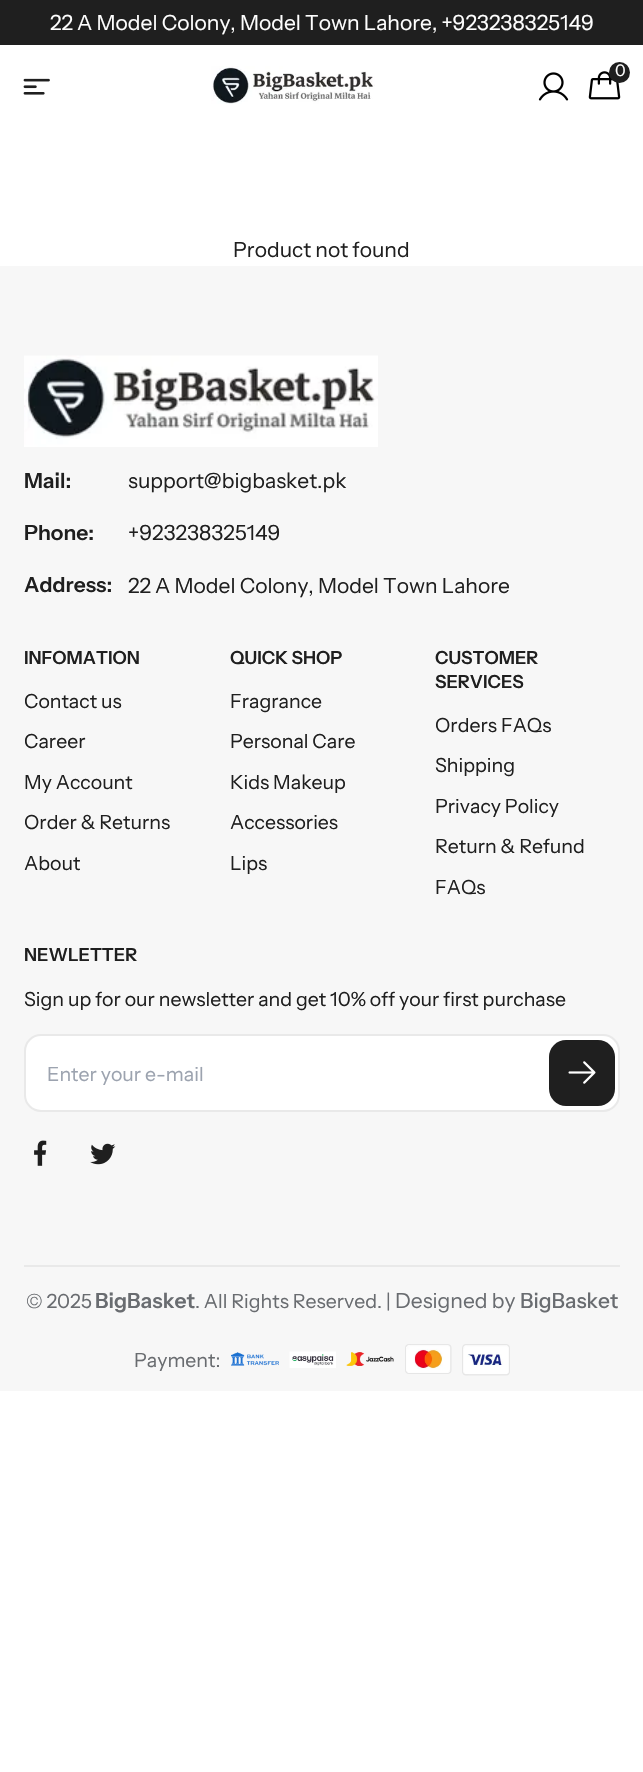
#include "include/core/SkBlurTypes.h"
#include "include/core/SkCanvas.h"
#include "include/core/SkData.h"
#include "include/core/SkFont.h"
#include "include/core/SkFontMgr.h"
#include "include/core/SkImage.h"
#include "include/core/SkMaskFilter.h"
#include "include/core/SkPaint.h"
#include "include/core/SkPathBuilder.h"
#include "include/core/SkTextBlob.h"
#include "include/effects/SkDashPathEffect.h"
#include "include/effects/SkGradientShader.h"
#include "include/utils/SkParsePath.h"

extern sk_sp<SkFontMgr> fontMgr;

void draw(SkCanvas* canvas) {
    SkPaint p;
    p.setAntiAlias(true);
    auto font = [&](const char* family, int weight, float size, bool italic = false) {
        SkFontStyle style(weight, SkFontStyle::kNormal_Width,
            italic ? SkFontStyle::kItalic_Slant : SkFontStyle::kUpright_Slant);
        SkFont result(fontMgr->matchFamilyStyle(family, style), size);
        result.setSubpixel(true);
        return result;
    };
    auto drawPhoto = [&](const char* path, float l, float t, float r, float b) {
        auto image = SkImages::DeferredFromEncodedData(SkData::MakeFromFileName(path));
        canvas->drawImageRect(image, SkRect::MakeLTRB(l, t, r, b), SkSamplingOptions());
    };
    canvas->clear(0xFFFFFFFF);
    p.setColor(0xFF1F1F1F);
    canvas->drawRect(SkRect::MakeLTRB(0, 0, 643, 45), p);
    auto font1 = font("Instrument Sans", 400, 21);
    p.setColor(0xFFFFFFFF);
    canvas->drawString("22 A Model Colony, Model Town Lahore, +923238325149", 50, 30, font1, p);
    drawPhoto("media/1.png", 23, 78, 50, 95);
    drawPhoto("media/2.png", 211, 66, 375, 104);
    drawPhoto("media/3.png", 588, 71, 621, 100);
    p.setColor(0xFF1F1F1F);
    canvas->drawCircle(619.5f, 72.5f, 10.5f, p);
    auto font2 = font("Instrument Sans", 400, 16);
    p.setColor(0xFFFFFFFF);
    canvas->drawString("0", 615, 76, font2, p);
    drawPhoto("media/4.png", 538, 72, 569, 101);
    p.setColor(0xFF1F1F1F);
    canvas->drawString("Product not found", 233, 257, font1, p);
    p.setColor(0xFFF7F7F7);
    canvas->drawRect(SkRect::MakeLTRB(0, 266, 643, 1391), p);
    drawPhoto("media/5.png", 24, 355, 378, 447);
    auto font3 = font("Instrument Sans", 600, 21);
    p.setColor(0xFF1F1F1F);
    {
        const struct { const char* s; float x, y; } items[] = {
            {"Mail:", 24, 488},
            {"Phone:", 24, 540},
            {"Address:", 24, 592},
        };
        for (auto [s, x, y] : items) {
            canvas->drawString(s, x, y, font3, p);
        }
    }
    {
        const struct { const char* s; float x, y; } items[] = {
            {"support@bigbasket.pk", 128, 488},
            {"+923238325149", 128, 540},
            {"22 A Model Colony, Model Town Lahore", 128, 593},
        };
        for (auto [s, x, y] : items) {
            canvas->drawString(s, x, y, font1, p);
        }
    }
    auto font4 = font("Instrument Sans", 600, 18);
    canvas->drawString("INFOMATION", 24, 664, font4, p);
    auto font5 = font("Instrument Sans", 400, 19.5f);
    {
        const struct { const char* s; float x, y; } items[] = {
            {"Contact us", 24, 708},
            {"Career", 24, 748},
            {"My Account", 24, 789},
            {"Order & Returns", 24, 829},
            {"About", 24, 870},
        };
        for (auto [s, x, y] : items) {
            canvas->drawString(s, x, y, font5, p);
        }
    }
    canvas->drawString("QUICK SHOP", 230, 664, font4, p);
    {
        const struct { const char* s; float x, y; } items[] = {
            {"Fragrance", 230, 708},
            {"Personal Care", 230, 748},
            {"Kids Makeup", 230, 789},
            {"Accessories", 230, 829},
            {"Lips", 230, 870},
        };
        for (auto [s, x, y] : items) {
            canvas->drawString(s, x, y, font5, p);
        }
    }
    canvas->drawString("CUSTOMER", 435, 664, font4, p);
    canvas->drawString("SERVICES", 435, 688, font4, p);
    {
        const struct { const char* s; float x, y; } items[] = {
            {"Orders FAQs", 435, 732},
            {"Shipping", 435, 772},
            {"Privacy Policy", 435, 813},
            {"Return & Refund", 435, 853},
            {"FAQs", 435, 894},
        };
        for (auto [s, x, y] : items) {
            canvas->drawString(s, x, y, font5, p);
        }
    }
    canvas->drawString("NEWLETTER", 24, 961, font4, p);
    canvas->drawString("Sign up for our newsletter and get 10% off your first purchase", 24, 1006, font5, p);
    p.setColor(0xFFFFFFFF);
    canvas->drawRoundRect(SkRect::MakeLTRB(25, 1035, 619, 1111), 16, 16, p);
    p.setStyle(SkPaint::kStroke_Style);
    p.setStrokeWidth(2);
    p.setColor(0xFFE9E9E9);
    canvas->drawRoundRect(SkRect::MakeLTRB(25, 1035, 619, 1111), 16, 16, p);
    p.setStyle(SkPaint::kFill_Style);
    p.setColor(0xFF9CA3AF);
    canvas->drawString("Enter your e-mail", 47, 1081, font5, p);
    p.setColor(0xFF1F1F1F);
    canvas->drawRoundRect(SkRect::MakeLTRB(549, 1040, 615, 1106), 17, 17, p);
    drawPhoto("media/6.png", 568, 1061, 596, 1084);
    drawPhoto("media/7.png", 34, 1140, 47, 1166);
    drawPhoto("media/8.png", 90, 1143, 116, 1165);
    p.setColor(0xFFE9E9E9);
    canvas->drawRect(SkRect::MakeLTRB(24, 1265, 620, 1267), p);
    p.setColor(0xFF696C70);
    canvas->drawString("© 2025", 26, 1308, font5, p);
    canvas->drawString("BigBasket", 95, 1308, font3, p);
    canvas->drawString(". All Rights Reserved. |", 195, 1308, font5, p);
    canvas->drawString("Designed by", 395, 1308, font1, p);
    auto font6 = font("Instrument Sans", 500, 21);
    canvas->drawString("BigBasket", 520, 1308, font6, p);
    canvas->drawString("Payment:", 134, 1367, font5, p);
    drawPhoto("media/9.png", 231, 1352, 279, 1366);
    drawPhoto("media/10.png", 289, 1351, 336, 1368);
    drawPhoto("media/11.png", 346, 1352, 394, 1366);
    drawPhoto("media/12.png", 405, 1344, 452, 1374);
    drawPhoto("media/13.png", 462, 1344, 510, 1376);
}
